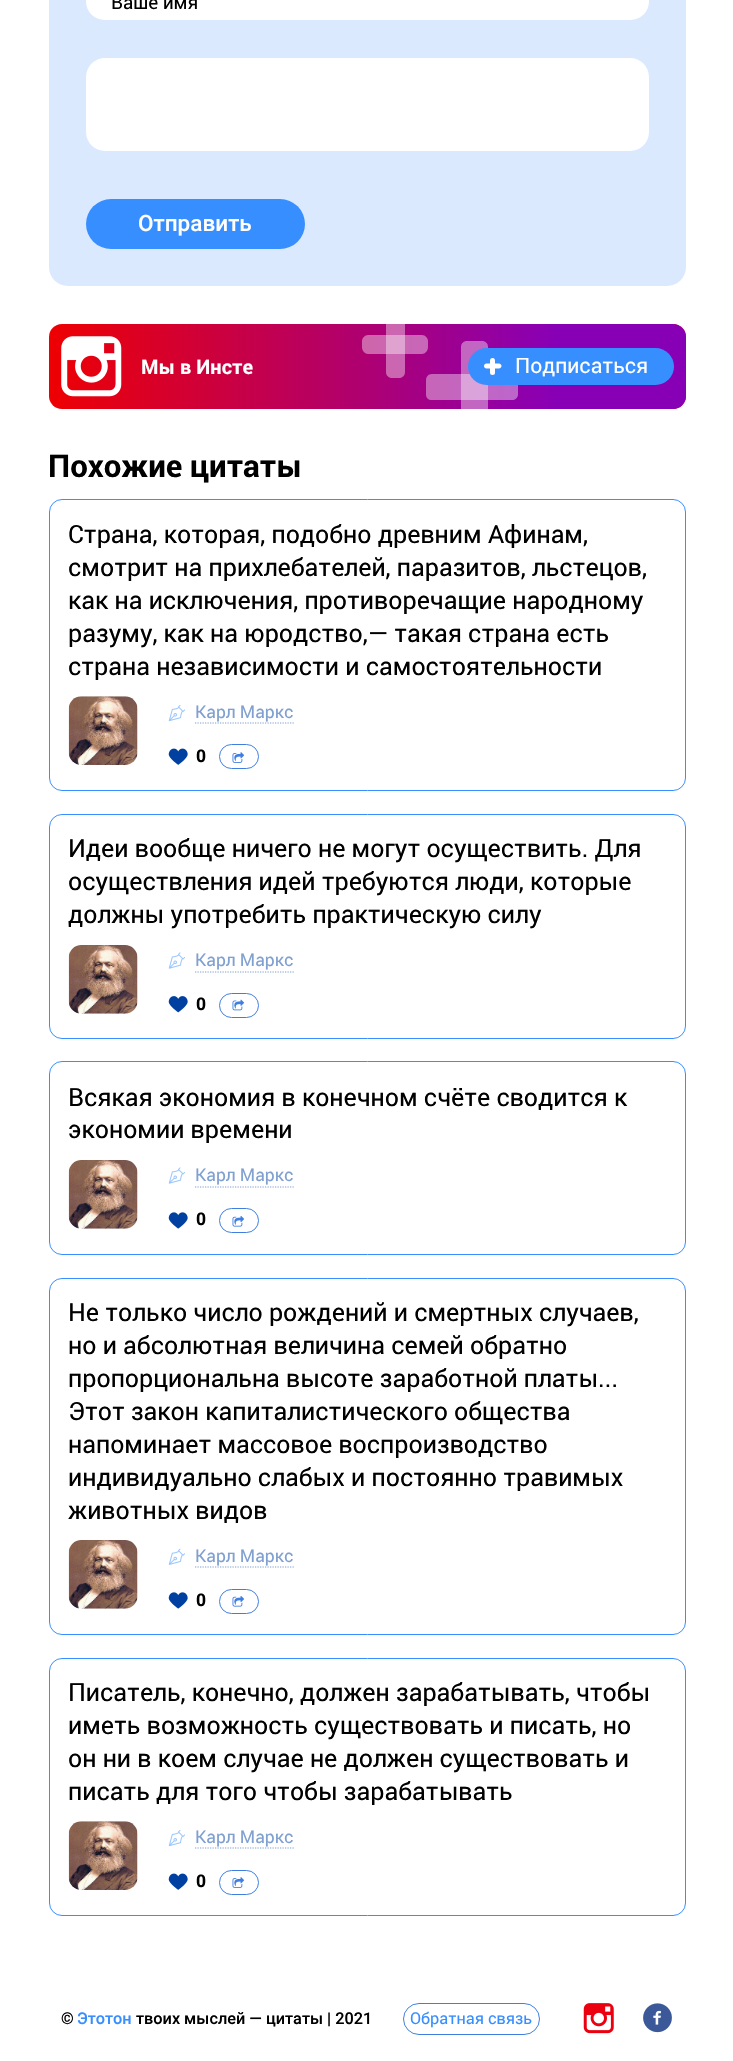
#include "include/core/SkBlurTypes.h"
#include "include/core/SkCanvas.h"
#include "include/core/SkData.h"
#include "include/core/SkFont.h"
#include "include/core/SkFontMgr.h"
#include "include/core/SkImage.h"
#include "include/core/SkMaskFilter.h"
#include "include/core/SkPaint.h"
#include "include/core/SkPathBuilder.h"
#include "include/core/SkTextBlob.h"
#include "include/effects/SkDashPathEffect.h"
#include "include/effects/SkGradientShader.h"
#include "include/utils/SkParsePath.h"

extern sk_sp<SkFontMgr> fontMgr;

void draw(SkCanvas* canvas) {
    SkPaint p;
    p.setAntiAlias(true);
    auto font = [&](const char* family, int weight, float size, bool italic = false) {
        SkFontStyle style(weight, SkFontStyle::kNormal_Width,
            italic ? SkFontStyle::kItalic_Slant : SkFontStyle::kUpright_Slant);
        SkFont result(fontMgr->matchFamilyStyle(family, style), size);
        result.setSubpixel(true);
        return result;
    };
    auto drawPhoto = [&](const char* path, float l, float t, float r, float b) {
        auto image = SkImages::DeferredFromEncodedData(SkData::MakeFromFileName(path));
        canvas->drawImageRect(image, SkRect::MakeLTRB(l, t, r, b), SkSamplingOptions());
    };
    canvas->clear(0xFFFFFFFF);
    p.setColor(0xFFDBE9FF);
    canvas->drawRoundRect(SkRect::MakeLTRB(49, -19, 686, 286), 19, 19, p);
    p.setColor(0xFFFFFFFF);
    canvas->drawRoundRect(SkRect::MakeLTRB(86, -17, 649, 20), 18.5f, 18.5f, p);
    auto font1 = font("Roboto", 400, 18.75f);
    p.setColor(0xFF000000);
    canvas->drawString("Ваше имя", 111, 9, font1, p);
    p.setColor(0xFFFFFFFF);
    canvas->drawRoundRect(SkRect::MakeLTRB(86, 58, 649, 151), 19, 19, p);
    p.setColor(0xFF378EFF);
    canvas->drawRoundRect(SkRect::MakeLTRB(86, 199, 305, 249), 25, 25, p);
    auto font2 = font("Roboto", 500, 22.5f);
    p.setColor(0xFFFFFFFF);
    canvas->drawString("Отправить", 138, 231, font2, p);
    p.setColor(0xFFEE0002);
    canvas->drawRoundRect(SkRect::MakeLTRB(49, 324, 686, 409), 13, 13, p);
    {
        const SkColor colors[] = {0xFF8700B6, 0x008700B6};
        const float stops[] = {0.2f, 1};
        const SkPoint ends[] = {{686, 366}, {49, 366}};
        p.setShader(SkGradientShader::MakeLinear(ends, colors, stops, 2, SkTileMode::kClamp));
        p.setAlpha(255);
    }
    canvas->drawRoundRect(SkRect::MakeLTRB(49, 324, 686, 409), 13, 13, p);
    drawPhoto("media/1.png", 61, 336, 122, 397);
    auto font3 = font("Roboto", 700, 20);
    p.setShader(nullptr);
    p.setColor(0xFFFFFFFF);
    canvas->drawString("Мы в Инсте", 141, 374, font3, p);
    p.setColor(0x66FFFFFF);
    canvas->drawPath(SkPathBuilder().moveTo(386, 324).lineTo(405, 324).lineTo(405, 372).cubicTo(405, 375.5f, 402.5f, 378, 399, 378).lineTo(392, 378).cubicTo(388.5f, 378, 386, 375.5f, 386, 372).close().detach(), p);
    canvas->drawPath(SkPathBuilder().moveTo(362, 347).lineTo(362, 341).cubicTo(362, 338, 365, 335, 368, 335).lineTo(422, 335).cubicTo(425, 335, 428, 338, 428, 341).lineTo(428, 347).cubicTo(428, 351, 425, 354, 422, 354).lineTo(368, 354).cubicTo(365, 354, 362, 351, 362, 347).close().detach(), p);
    canvas->drawPath(SkPathBuilder().moveTo(467, 341).lineTo(482, 341).cubicTo(485.5f, 341, 488, 343.5f, 488, 347).lineTo(488, 409).lineTo(461, 409).lineTo(461, 347).cubicTo(461, 343.5f, 463.5f, 341, 467, 341).close().detach(), p);
    canvas->drawPath(SkPathBuilder().moveTo(426, 394).lineTo(426, 380).cubicTo(426, 377, 428, 374, 432, 374).lineTo(512, 374).cubicTo(515, 374, 518, 377, 518, 380).lineTo(518, 394).cubicTo(518, 398, 515, 400, 512, 400).lineTo(432, 400).cubicTo(428, 400, 426, 398, 426, 394).close().detach(), p);
    p.setColor(0xFF378EFF);
    canvas->drawRoundRect(SkRect::MakeLTRB(468, 348, 674, 385), 18.5f, 18.5f, p);
    p.setColor(0xFFFFFFFF);
    canvas->drawRoundRect(SkRect::MakeLTRB(490, 358, 495, 375), 2.5f, 2.5f, p);
    auto font4 = font("Roboto", 400, 21.25f);
    canvas->drawString("Подписаться", 515, 373, font4, p);
    canvas->drawPath(SkPathBuilder().moveTo(484, 366).cubicTo(484, 364.5f, 485, 363.5f, 486.5f, 363.5f).lineTo(499, 363.5f).cubicTo(500, 363.5f, 501.5f, 364.5f, 501.5f, 366).cubicTo(501.5f, 367.5f, 500, 368.5f, 499, 368.5f).lineTo(486.5f, 368.5f).cubicTo(485, 368.5f, 484, 367.5f, 484, 366).close().detach(), p);
    auto font5 = font("Roboto", 700, 31.25f);
    p.setColor(0xFF000000);
    canvas->drawString("Похожие цитаты", 48, 477, font5, p);
    p.setStyle(SkPaint::kStroke_Style);
    p.setStrokeWidth(1);
    p.setColor(0xFF378EFF);
    canvas->drawRoundRect(SkRect::MakeLTRB(49.5f, 499.5f, 685.5f, 790.5f), 12.5f, 12.5f, p);
    auto font6 = font("Roboto", 400, 25);
    p.setStyle(SkPaint::kFill_Style);
    p.setColor(0xFF000000);
    {
        const struct { const char* s; float x, y; } items[] = {
            {"Страна, которая, подобно древним Афинам,", 68, 543},
            {"смотрит на прихлебателей, паразитов, льстецов,", 68, 576},
            {"как на исключения, противоречащие народному", 68, 609},
            {"разуму, как на юродство,— такая страна есть", 68, 642},
            {"страна независимости и самостоятельности", 68, 675},
        };
        for (auto [s, x, y] : items) {
            canvas->drawString(s, x, y, font6, p);
        }
    }
    drawPhoto("media/2.png", 68, 696, 138, 765);
    drawPhoto("media/3.png", 168, 705, 185, 722);
    auto font7 = font("Roboto", 400, 17.5f);
    p.setColor(0xFF80A0D0);
    canvas->drawString("Карл Маркс", 195, 718, font7, p);
    p.setStyle(SkPaint::kStroke_Style);
    p.setStrokeWidth(1.2f);
    p.setPathEffect(SkDashPathEffect::Make({{1.25f, 1.25f}}, 0));
    canvas->drawPath(SkPathBuilder().moveTo(195, 723).lineTo(294, 723).detach(), p);
    p.setPathEffect(nullptr);
    drawPhoto("media/4.png", 168, 748, 188, 765);
    auto font8 = font("Roboto", 700, 17.5f);
    p.setStyle(SkPaint::kFill_Style);
    p.setColor(0xFF000000);
    canvas->drawString("0", 196, 762, font8, p);
    p.setStyle(SkPaint::kStroke_Style);
    p.setStrokeWidth(1);
    p.setColor(0xFF407FE0);
    canvas->drawRoundRect(SkRect::MakeLTRB(219.5f, 744.5f, 258.5f, 768.5f), 12, 12, p);
    drawPhoto("media/5.png", 232, 752, 245, 763);
    p.setColor(0xFF378EFF);
    canvas->drawRoundRect(SkRect::MakeLTRB(49.5f, 814.5f, 685.5f, 1038.5f), 12.5f, 12.5f, p);
    p.setStyle(SkPaint::kFill_Style);
    p.setColor(0xFF000000);
    {
        const struct { const char* s; float x, y; } items[] = {
            {"Идеи вообще ничего не могут осуществить. Для", 68, 857},
            {"осуществления идей требуются люди, которые", 68, 890},
            {"должны употребить практическую силу", 68, 923},
        };
        for (auto [s, x, y] : items) {
            canvas->drawString(s, x, y, font6, p);
        }
    }
    drawPhoto("media/6.png", 68, 945, 138, 1014);
    drawPhoto("media/7.png", 168, 952, 185, 969);
    p.setColor(0xFF80A0D0);
    canvas->drawString("Карл Маркс", 195, 966, font7, p);
    p.setStyle(SkPaint::kStroke_Style);
    p.setStrokeWidth(1.2f);
    p.setPathEffect(SkDashPathEffect::Make({{1.25f, 1.25f}}, 0));
    canvas->drawPath(SkPathBuilder().moveTo(195, 972).lineTo(294, 972).detach(), p);
    p.setPathEffect(nullptr);
    drawPhoto("media/8.png", 168, 996, 188, 1013);
    p.setStyle(SkPaint::kFill_Style);
    p.setColor(0xFF000000);
    canvas->drawString("0", 196, 1010, font8, p);
    p.setStyle(SkPaint::kStroke_Style);
    p.setStrokeWidth(1);
    p.setColor(0xFF407FE0);
    canvas->drawRoundRect(SkRect::MakeLTRB(219.5f, 993.5f, 258.5f, 1017.5f), 12, 12, p);
    drawPhoto("media/9.png", 232, 999, 245, 1011);
    p.setColor(0xFF378EFF);
    canvas->drawRoundRect(SkRect::MakeLTRB(49.5f, 1061.5f, 685.5f, 1254.5f), 12.5f, 12.5f, p);
    p.setStyle(SkPaint::kFill_Style);
    p.setColor(0xFF000000);
    canvas->drawString("Всякая экономия в конечном счёте сводится к", 68, 1106, font6, p);
    canvas->drawString("экономии времени", 68, 1138, font6, p);
    drawPhoto("media/6.png", 68, 1160, 138, 1229);
    drawPhoto("media/7.png", 168, 1167, 185, 1184);
    p.setColor(0xFF80A0D0);
    canvas->drawString("Карл Маркс", 195, 1181, font7, p);
    p.setStyle(SkPaint::kStroke_Style);
    p.setStrokeWidth(1.2f);
    p.setPathEffect(SkDashPathEffect::Make({{1.25f, 1.25f}}, 0));
    canvas->drawPath(SkPathBuilder().moveTo(195, 1187).lineTo(294, 1187).detach(), p);
    p.setPathEffect(nullptr);
    drawPhoto("media/10.png", 168, 1212, 188, 1229);
    p.setStyle(SkPaint::kFill_Style);
    p.setColor(0xFF000000);
    canvas->drawString("0", 196, 1225, font8, p);
    p.setStyle(SkPaint::kStroke_Style);
    p.setStrokeWidth(1);
    p.setColor(0xFF407FE0);
    canvas->drawRoundRect(SkRect::MakeLTRB(219.5f, 1208.5f, 258.5f, 1232.5f), 12, 12, p);
    drawPhoto("media/11.png", 232, 1216, 244, 1227);
    p.setColor(0xFF378EFF);
    canvas->drawRoundRect(SkRect::MakeLTRB(49.5f, 1278.5f, 685.5f, 1634.5f), 12.5f, 12.5f, p);
    p.setStyle(SkPaint::kFill_Style);
    p.setColor(0xFF000000);
    {
        const struct { const char* s; float x, y; } items[] = {
            {"Не только число рождений и смертных случаев,", 68, 1321},
            {"но и абсолютная величина семей обратно", 68, 1354},
            {"пропорциональна высоте заработной платы...", 68, 1387},
            {"Этот закон капиталистического общества", 68, 1420},
            {"напоминает массовое воспроизводство", 68, 1453},
            {"индивидуально слабых и постоянно травимых", 68, 1486},
            {"животных видов", 68, 1519},
        };
        for (auto [s, x, y] : items) {
            canvas->drawString(s, x, y, font6, p);
        }
    }
    drawPhoto("media/6.png", 68, 1540, 138, 1609);
    drawPhoto("media/12.png", 168, 1548, 185, 1565);
    p.setColor(0xFF80A0D0);
    canvas->drawString("Карл Маркс", 195, 1562, font7, p);
    p.setStyle(SkPaint::kStroke_Style);
    p.setStrokeWidth(1.2f);
    p.setPathEffect(SkDashPathEffect::Make({{1.25f, 1.25f}}, 0));
    canvas->drawPath(SkPathBuilder().moveTo(195, 1567).lineTo(294, 1567).detach(), p);
    p.setPathEffect(nullptr);
    drawPhoto("media/10.png", 168, 1592, 188, 1609);
    p.setStyle(SkPaint::kFill_Style);
    p.setColor(0xFF000000);
    canvas->drawString("0", 196, 1606, font8, p);
    p.setStyle(SkPaint::kStroke_Style);
    p.setStrokeWidth(1);
    p.setColor(0xFF407FE0);
    canvas->drawRoundRect(SkRect::MakeLTRB(219.5f, 1589.5f, 258.5f, 1613.5f), 12, 12, p);
    drawPhoto("media/11.png", 232, 1596, 244, 1607);
    p.setColor(0xFF378EFF);
    canvas->drawRoundRect(SkRect::MakeLTRB(49.5f, 1658.5f, 685.5f, 1915.5f), 12.5f, 12.5f, p);
    p.setStyle(SkPaint::kFill_Style);
    p.setColor(0xFF000000);
    {
        const struct { const char* s; float x, y; } items[] = {
            {"Писатель, конечно, должен зарабатывать, чтобы", 68, 1701},
            {"иметь возможность существовать и писать, но", 68, 1734},
            {"он ни в коем случае не должен существовать и", 68, 1767},
            {"писать для того чтобы зарабатывать", 68, 1800},
        };
        for (auto [s, x, y] : items) {
            canvas->drawString(s, x, y, font6, p);
        }
    }
    drawPhoto("media/13.png", 68, 1821, 138, 1890);
    drawPhoto("media/3.png", 168, 1830, 185, 1847);
    p.setColor(0xFF80A0D0);
    canvas->drawString("Карл Маркс", 195, 1843, font7, p);
    p.setStyle(SkPaint::kStroke_Style);
    p.setStrokeWidth(1.2f);
    p.setPathEffect(SkDashPathEffect::Make({{1.25f, 1.25f}}, 0));
    canvas->drawPath(SkPathBuilder().moveTo(195, 1848).lineTo(294, 1848).detach(), p);
    p.setPathEffect(nullptr);
    drawPhoto("media/4.png", 168, 1873, 188, 1890);
    p.setStyle(SkPaint::kFill_Style);
    p.setColor(0xFF000000);
    canvas->drawString("0", 196, 1887, font8, p);
    p.setStyle(SkPaint::kStroke_Style);
    p.setStrokeWidth(1);
    p.setColor(0xFF407FE0);
    canvas->drawRoundRect(SkRect::MakeLTRB(219.5f, 1870.5f, 258.5f, 1894.5f), 12, 12, p);
    drawPhoto("media/5.png", 232, 1877, 245, 1888);
    auto font9 = font("Roboto", 500, 16.25f);
    p.setStyle(SkPaint::kFill_Style);
    p.setColor(0xFF000000);
    canvas->drawString("©", 61, 2024, font9, p);
    p.setColor(0xFF378EFF);
    canvas->drawString("Этотон", 77, 2024, font9, p);
    p.setColor(0xFF000000);
    canvas->drawString("твоих мыслей — цитаты | 2021", 136, 2024, font9, p);
    p.setStyle(SkPaint::kStroke_Style);
    p.setColor(0xFF407FE0);
    canvas->drawRoundRect(SkRect::MakeLTRB(403.5f, 2003.5f, 539.5f, 2034.5f), 15.5f, 15.5f, p);
    auto font10 = font("Roboto", 400, 16.25f);
    p.setStyle(SkPaint::kFill_Style);
    p.setColor(0xFF378EFF);
    canvas->drawString("Обратная связь", 410, 2024, font10, p);
    drawPhoto("media/14.png", 583, 2003, 614, 2034);
    drawPhoto("media/15.png", 643, 2003, 672, 2033);
}
